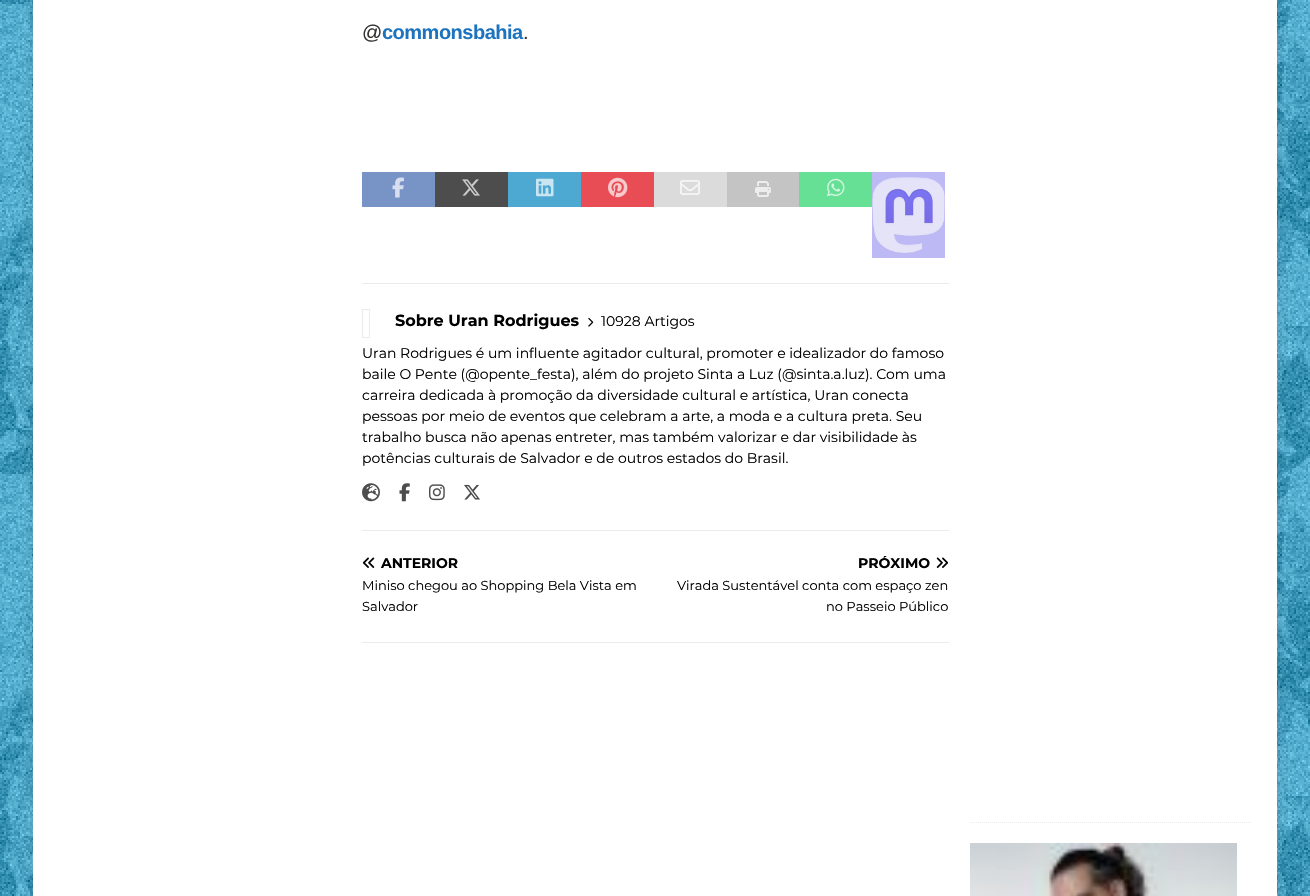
#include "include/core/SkBlurTypes.h"
#include "include/core/SkCanvas.h"
#include "include/core/SkData.h"
#include "include/core/SkFont.h"
#include "include/core/SkFontMgr.h"
#include "include/core/SkImage.h"
#include "include/core/SkMaskFilter.h"
#include "include/core/SkPaint.h"
#include "include/core/SkPathBuilder.h"
#include "include/core/SkTextBlob.h"
#include "include/effects/SkDashPathEffect.h"
#include "include/effects/SkGradientShader.h"
#include "include/utils/SkParsePath.h"

extern sk_sp<SkFontMgr> fontMgr;

void draw(SkCanvas* canvas) {
    SkPaint p;
    p.setAntiAlias(true);
    auto font = [&](const char* family, int weight, float size, bool italic = false) {
        SkFontStyle style(weight, SkFontStyle::kNormal_Width,
            italic ? SkFontStyle::kItalic_Slant : SkFontStyle::kUpright_Slant);
        SkFont result(fontMgr->matchFamilyStyle(family, style), size);
        result.setSubpixel(true);
        return result;
    };
    auto drawTracked = [&](const char* s, float x, float y, const SkFont& font, const SkPaint& ink, float letter, float word) {
        std::vector<SkGlyphID> glyphs(font.countText(s, strlen(s), SkTextEncoding::kUTF8));
        std::vector<float> xs(glyphs.size());
        font.textToGlyphs(s, strlen(s), SkTextEncoding::kUTF8, glyphs);
        font.getXPos(glyphs, xs, x);
        float extra = 0;
        for (size_t i = 0; i < glyphs.size(); i++) {
            xs[i] += extra;
            extra += letter + word * (glyphs[i] == font.unicharToGlyph(' '));
        }
        canvas->drawTextBlob(SkTextBlob::MakeFromPosHGlyphs(glyphs, xs, y, font), 0, 0, ink);
    };
    auto drawPhoto = [&](const char* path, float l, float t, float r, float b) {
        auto image = SkImages::DeferredFromEncodedData(SkData::MakeFromFileName(path));
        canvas->drawImageRect(image, SkRect::MakeLTRB(l, t, r, b), SkSamplingOptions());
    };
    canvas->clear(0xFFFFFFFF);
    drawPhoto("media/1.png", 0, 0, 1310, 896);
    p.setColor(0x2B323232);
    p.setMaskFilter(SkMaskFilter::MakeBlur(kNormal_SkBlurStyle, 5));
    canvas->drawRect(SkRect::MakeLTRB(33, -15, 1277, 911), p);
    p.setMaskFilter(nullptr);
    p.setColor(0xFFFFFFFF);
    canvas->drawRect(SkRect::MakeLTRB(33, 0, 1277, 896), p);
    auto font1 = font("Liberation Sans", 400, 20);
    p.setColor(0xFF333333);
    drawTracked("@", 362, 39, font1, p, -0.5f, 0);
    auto font2 = font("Liberation Sans", 700, 20);
    p.setColor(0xFF1E73BE);
    drawTracked("commonsbahia", 382, 39, font2, p, -0.5f, 0);
    p.setColor(0xFF333333);
    drawTracked(".", 523, 39, font1, p, -0.5f, 0);
    p.setColor(0xFF7893C6);
    canvas->drawRect(SkRect::MakeLTRB(362, 172, 435, 207), p);
    drawPhoto("media/2.png", 392, 177, 404, 198);
    p.setColor(0xFF4D4D4D);
    canvas->drawRect(SkRect::MakeLTRB(435, 172, 508, 207), p);
    drawPhoto("media/3.png", 462, 179, 480, 196);
    p.setColor(0xFF4DA9D2);
    canvas->drawRect(SkRect::MakeLTRB(508, 172, 581, 207), p);
    drawPhoto("media/4.png", 536, 178, 554, 197);
    p.setColor(0xFFE84D56);
    canvas->drawRect(SkRect::MakeLTRB(581, 172, 654, 207), p);
    drawPhoto("media/5.png", 608, 177, 628, 198);
    p.setColor(0xFFDBDBDB);
    canvas->drawRect(SkRect::MakeLTRB(654, 172, 727, 207), p);
    drawPhoto("media/6.png", 680, 180, 700, 195);
    p.setColor(0xFFC4C4C4);
    canvas->drawRect(SkRect::MakeLTRB(727, 172, 799, 207), p);
    drawPhoto("media/7.png", 755, 181, 771, 197);
    p.setColor(0xFF66E094);
    canvas->drawRect(SkRect::MakeLTRB(799, 172, 872, 207), p);
    drawPhoto("media/8.png", 827, 178, 845, 197);
    p.setColor(0xFFBDB9F5);
    canvas->drawRect(SkRect::MakeLTRB(872, 172, 945, 258), p);
    drawPhoto("media/9.png", 872, 177, 945, 253);
    p.setColor(0xFFEBEBEB);
    canvas->drawRect(SkRect::MakeLTRB(362, 283, 949, 284), p);
    canvas->drawRect(SkRect::MakeLTRB(362, 530, 949, 531), p);
    p.setStyle(SkPaint::kStroke_Style);
    p.setStrokeWidth(1);
    canvas->drawRect(SkRect::MakeLTRB(362.5f, 309.5f, 369.5f, 337.5f), p);
    auto font3 = font("Montserrat", 700, 16);
    p.setStyle(SkPaint::kFill_Style);
    p.setColor(0xFF000000);
    canvas->drawString("Sobre Uran Rodrigues", 395, 326, font3, p);
    drawPhoto("media/10.png", 588, 317, 594, 327);
    auto font4 = font("Montserrat", 400, 14);
    {
        const struct { const char* s; float x, y; } items[] = {
            {"10928 Artigos", 601, 326},
            {"Uran Rodrigues é um influente agitador cultural, promoter e idealizador do famoso", 362, 358},
            {"baile O Pente (@opente_festa), além do projeto Sinta a Luz (@sinta.a.luz). Com uma", 362, 379},
            {"carreira dedicada à promoção da diversidade cultural e artística, Uran conecta", 362, 400},
            {"pessoas por meio de eventos que celebram a arte, a moda e a cultura preta. Seu", 362, 421},
            {"trabalho busca não apenas entreter, mas também valorizar e dar visibilidade às", 362, 442},
            {"potências culturais de Salvador e de outros estados do Brasil.", 362, 463},
        };
        for (auto [s, x, y] : items) {
            canvas->drawString(s, x, y, font4, p);
        }
    }
    drawPhoto("media/11.png", 362, 483, 380, 502);
    drawPhoto("media/12.png", 399, 483, 410, 502);
    drawPhoto("media/13.png", 429, 484, 445, 501);
    drawPhoto("media/14.png", 464, 484, 480, 500);
    p.setColor(0xFFEBEBEB);
    canvas->drawRect(SkRect::MakeLTRB(362, 642, 949, 643), p);
    drawPhoto("media/15.png", 362, 557, 375, 568);
    auto font5 = font("Montserrat", 700, 14);
    p.setColor(0xFF000000);
    canvas->drawString("ANTERIOR", 381, 568, font5, p);
    auto font6 = font("Montserrat", 400, 13);
    canvas->drawString("Miniso chegou ao Shopping Bela Vista em", 362, 590, font6, p);
    canvas->drawString("Salvador", 362, 611, font6, p);
    canvas->save();
    canvas->clipRect(SkRect::MakeLTRB(663, 556, 949, 570));
    canvas->drawString("PRÓXIMO", 858, 568, font5, p);
    canvas->restore();
    drawPhoto("media/16.png", 936, 557, 949, 568);
    canvas->drawString("Virada Sustentável conta com espaço zen", 677, 590, font6, p);
    canvas->drawString("no Passeio Público", 826, 611, font6, p);
    p.setStyle(SkPaint::kStroke_Style);
    p.setColor(0xFFEBEBEB);
    p.setPathEffect(SkDashPathEffect::Make({{1, 1}}, 0));
    canvas->drawPath(SkPathBuilder().moveTo(970, 822.5f).lineTo(1252, 822.5f).detach(), p);
    p.setPathEffect(nullptr);
    drawPhoto("media/17.png", 970, 843, 1237, 896);
}
